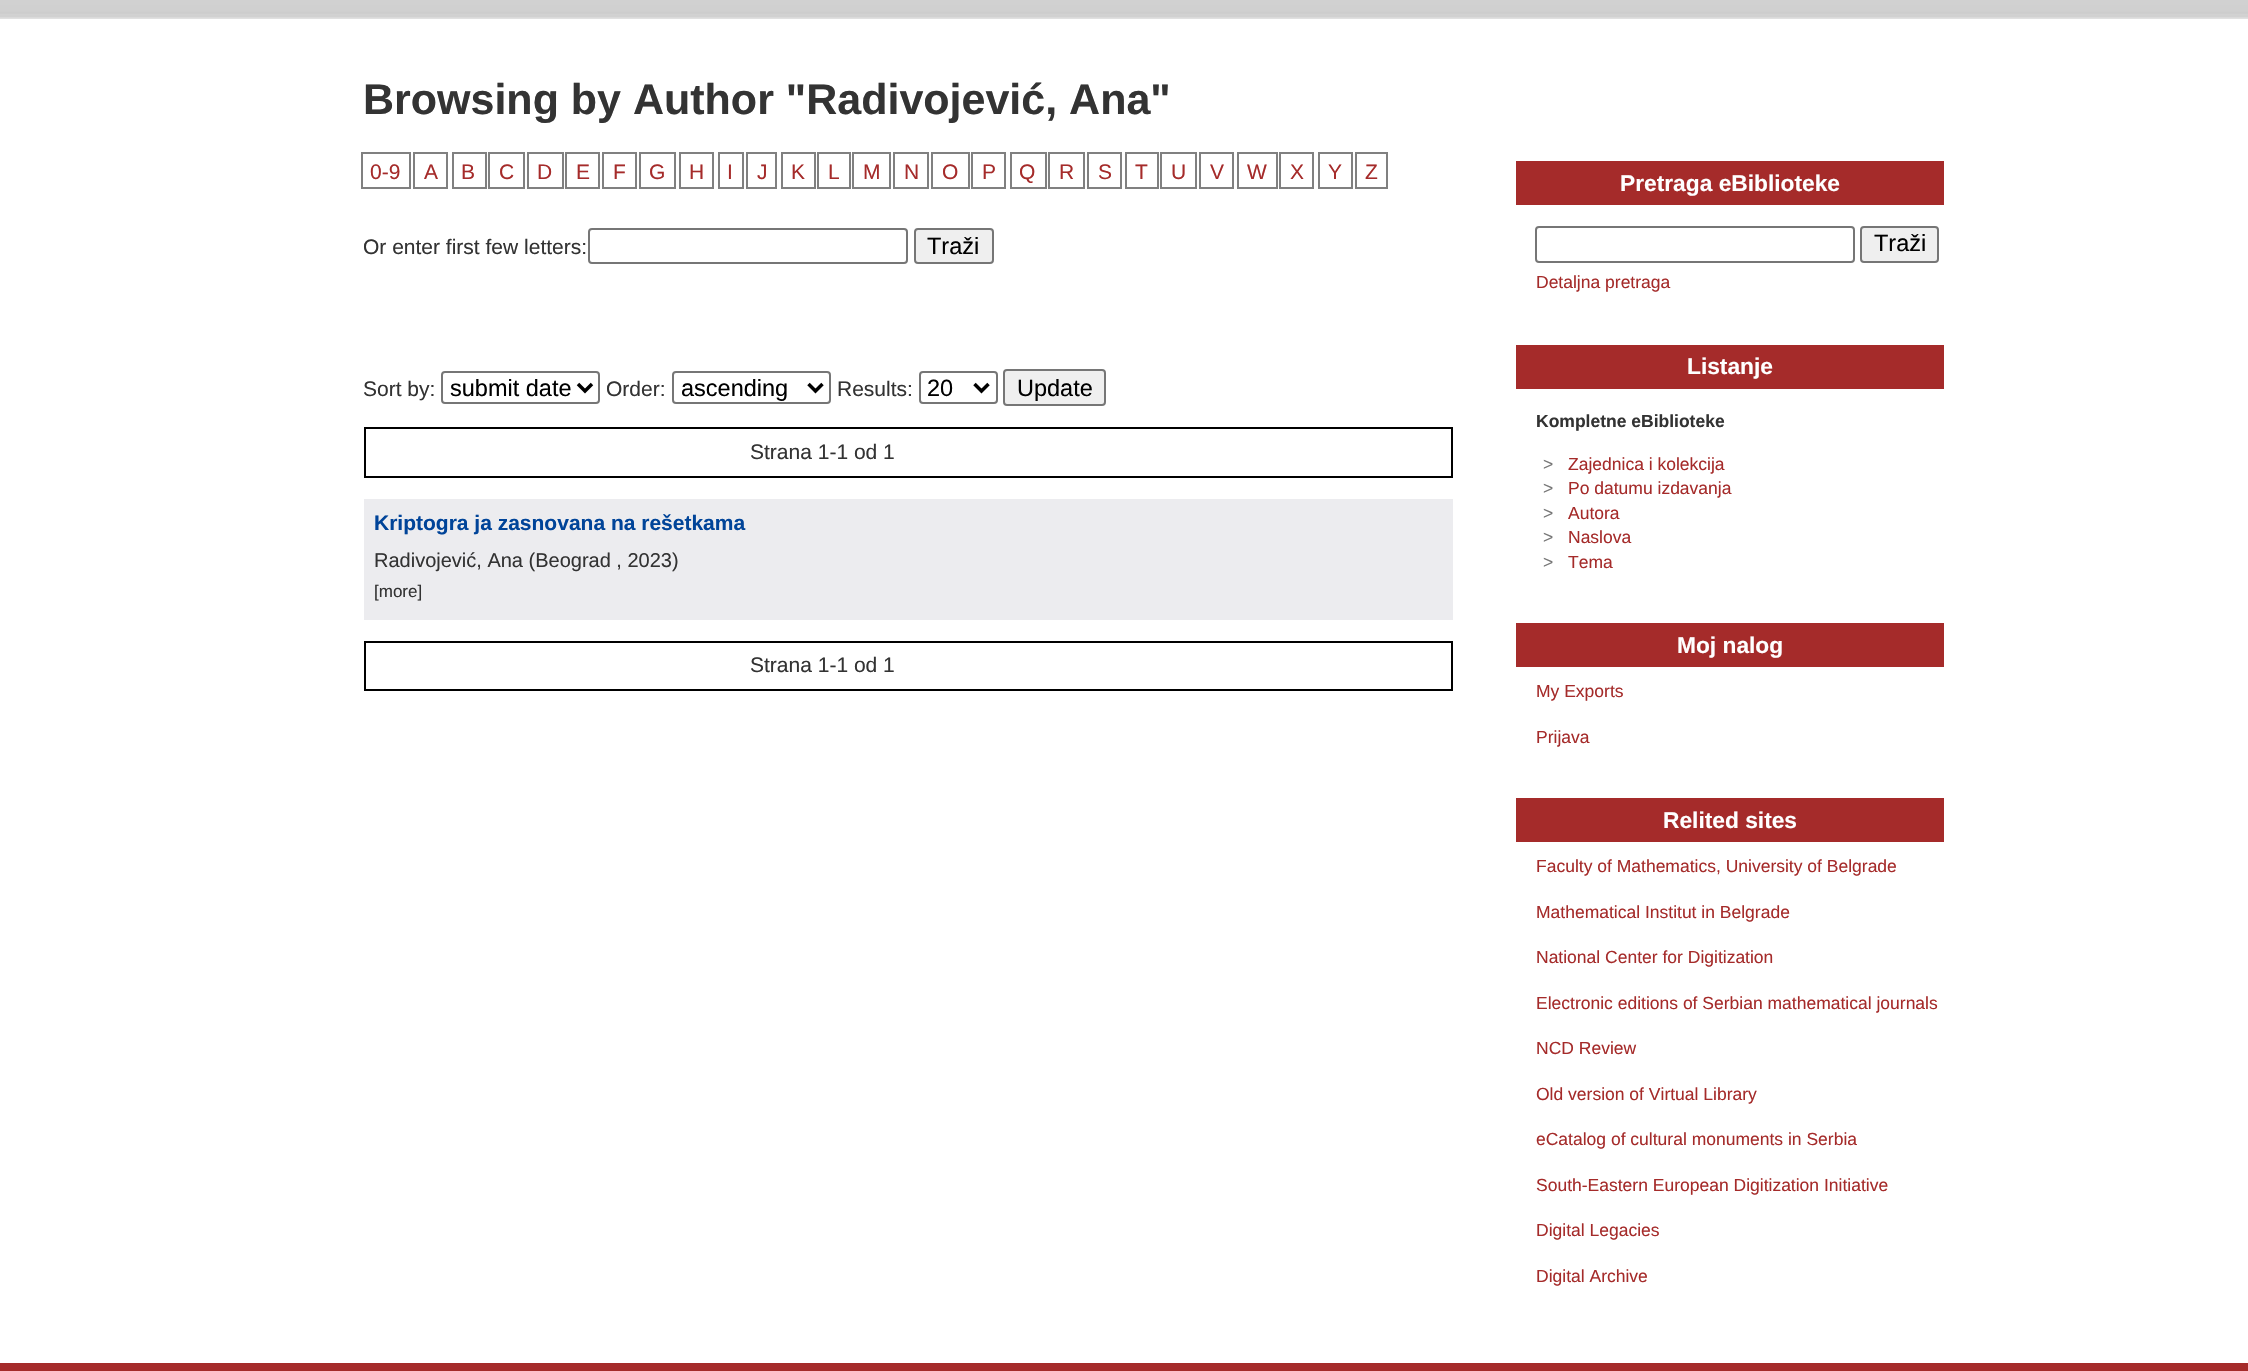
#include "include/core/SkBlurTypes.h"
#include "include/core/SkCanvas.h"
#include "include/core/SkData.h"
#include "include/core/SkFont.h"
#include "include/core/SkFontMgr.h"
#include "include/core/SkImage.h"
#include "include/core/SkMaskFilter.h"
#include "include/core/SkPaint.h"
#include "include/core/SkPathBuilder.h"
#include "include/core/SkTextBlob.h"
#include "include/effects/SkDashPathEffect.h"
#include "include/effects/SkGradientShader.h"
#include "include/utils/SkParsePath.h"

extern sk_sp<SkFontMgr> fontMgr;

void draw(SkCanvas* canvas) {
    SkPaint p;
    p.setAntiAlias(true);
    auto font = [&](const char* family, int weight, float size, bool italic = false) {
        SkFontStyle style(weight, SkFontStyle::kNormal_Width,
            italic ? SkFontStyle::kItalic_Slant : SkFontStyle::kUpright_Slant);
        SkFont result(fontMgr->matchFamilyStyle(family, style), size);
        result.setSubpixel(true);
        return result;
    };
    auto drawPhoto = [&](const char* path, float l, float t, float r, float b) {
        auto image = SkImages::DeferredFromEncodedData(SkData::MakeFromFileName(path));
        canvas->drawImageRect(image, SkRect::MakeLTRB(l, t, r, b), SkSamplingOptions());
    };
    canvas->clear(0xFFFFFFFF);
    drawPhoto("media/1.png", 0, 0, 2248, 19);
    auto font1 = font("Liberation Sans", 700, 43);
    p.setColor(0xFF333333);
    canvas->drawString("Browsing by Author \"Radivojević, Ana\"", 363, 114, font1, p);
    p.setStyle(SkPaint::kStroke_Style);
    p.setStrokeWidth(2);
    p.setColor(0xFF808080);
    canvas->drawRect(SkRect::MakeLTRB(362, 153, 410, 188), p);
    auto font2 = font("Liberation Sans", 400, 21);
    p.setStyle(SkPaint::kFill_Style);
    p.setColor(0xFFA52B2A);
    canvas->drawString("0-9", 370, 179, font2, p);
    p.setStyle(SkPaint::kStroke_Style);
    p.setColor(0xFF808080);
    canvas->drawRect(SkRect::MakeLTRB(414, 153, 447, 188), p);
    p.setStyle(SkPaint::kFill_Style);
    p.setColor(0xFFA52B2A);
    canvas->drawString("A", 424, 179, font2, p);
    p.setStyle(SkPaint::kStroke_Style);
    p.setColor(0xFF808080);
    canvas->drawRect(SkRect::MakeLTRB(453, 153, 486, 188), p);
    p.setStyle(SkPaint::kFill_Style);
    p.setColor(0xFFA52B2A);
    canvas->drawString("B", 461, 179, font2, p);
    p.setStyle(SkPaint::kStroke_Style);
    p.setColor(0xFF808080);
    canvas->drawRect(SkRect::MakeLTRB(489, 153, 524, 188), p);
    p.setStyle(SkPaint::kFill_Style);
    p.setColor(0xFFA52B2A);
    canvas->drawString("C", 499, 179, font2, p);
    p.setStyle(SkPaint::kStroke_Style);
    p.setColor(0xFF808080);
    canvas->drawRect(SkRect::MakeLTRB(528, 153, 563, 188), p);
    p.setStyle(SkPaint::kFill_Style);
    p.setColor(0xFFA52B2A);
    canvas->drawString("D", 537, 179, font2, p);
    p.setStyle(SkPaint::kStroke_Style);
    p.setColor(0xFF808080);
    canvas->drawRect(SkRect::MakeLTRB(566, 153, 599, 188), p);
    p.setStyle(SkPaint::kFill_Style);
    p.setColor(0xFFA52B2A);
    canvas->drawString("E", 576, 179, font2, p);
    p.setStyle(SkPaint::kStroke_Style);
    p.setColor(0xFF808080);
    canvas->drawRect(SkRect::MakeLTRB(603, 153, 636, 188), p);
    p.setStyle(SkPaint::kFill_Style);
    p.setColor(0xFFA52B2A);
    canvas->drawString("F", 613, 179, font2, p);
    p.setStyle(SkPaint::kStroke_Style);
    p.setColor(0xFF808080);
    canvas->drawRect(SkRect::MakeLTRB(640, 153, 675, 188), p);
    p.setStyle(SkPaint::kFill_Style);
    p.setColor(0xFFA52B2A);
    canvas->drawString("G", 649, 179, font2, p);
    p.setStyle(SkPaint::kStroke_Style);
    p.setColor(0xFF808080);
    canvas->drawRect(SkRect::MakeLTRB(680, 153, 713, 188), p);
    p.setStyle(SkPaint::kFill_Style);
    p.setColor(0xFFA52B2A);
    canvas->drawString("H", 689, 179, font2, p);
    p.setStyle(SkPaint::kStroke_Style);
    p.setColor(0xFF808080);
    canvas->drawRect(SkRect::MakeLTRB(719, 153, 743, 188), p);
    p.setStyle(SkPaint::kFill_Style);
    p.setColor(0xFFA52B2A);
    canvas->drawString("I", 727, 179, font2, p);
    p.setStyle(SkPaint::kStroke_Style);
    p.setColor(0xFF808080);
    canvas->drawRect(SkRect::MakeLTRB(747, 153, 776, 188), p);
    p.setStyle(SkPaint::kFill_Style);
    p.setColor(0xFFA52B2A);
    canvas->drawString("J", 757, 179, font2, p);
    p.setStyle(SkPaint::kStroke_Style);
    p.setColor(0xFF808080);
    canvas->drawRect(SkRect::MakeLTRB(782, 153, 815, 188), p);
    p.setStyle(SkPaint::kFill_Style);
    p.setColor(0xFFA52B2A);
    canvas->drawString("K", 791, 179, font2, p);
    p.setStyle(SkPaint::kStroke_Style);
    p.setColor(0xFF808080);
    canvas->drawRect(SkRect::MakeLTRB(818, 153, 850, 188), p);
    p.setStyle(SkPaint::kFill_Style);
    p.setColor(0xFFA52B2A);
    canvas->drawString("L", 828, 179, font2, p);
    p.setStyle(SkPaint::kStroke_Style);
    p.setColor(0xFF808080);
    canvas->drawRect(SkRect::MakeLTRB(853, 153, 890, 188), p);
    p.setStyle(SkPaint::kFill_Style);
    p.setColor(0xFFA52B2A);
    canvas->drawString("M", 863, 179, font2, p);
    p.setStyle(SkPaint::kStroke_Style);
    p.setColor(0xFF808080);
    canvas->drawRect(SkRect::MakeLTRB(894, 153, 928, 188), p);
    p.setStyle(SkPaint::kFill_Style);
    p.setColor(0xFFA52B2A);
    canvas->drawString("N", 904, 179, font2, p);
    p.setStyle(SkPaint::kStroke_Style);
    p.setColor(0xFF808080);
    canvas->drawRect(SkRect::MakeLTRB(932, 153, 969, 188), p);
    p.setStyle(SkPaint::kFill_Style);
    p.setColor(0xFFA52B2A);
    canvas->drawString("O", 942, 179, font2, p);
    p.setStyle(SkPaint::kStroke_Style);
    p.setColor(0xFF808080);
    canvas->drawRect(SkRect::MakeLTRB(972, 153, 1005, 188), p);
    p.setStyle(SkPaint::kFill_Style);
    p.setColor(0xFFA52B2A);
    canvas->drawString("P", 982, 179, font2, p);
    p.setStyle(SkPaint::kStroke_Style);
    p.setColor(0xFF808080);
    canvas->drawRect(SkRect::MakeLTRB(1011, 153, 1046, 188), p);
    p.setStyle(SkPaint::kFill_Style);
    p.setColor(0xFFA52B2A);
    canvas->drawString("Q", 1019, 179, font2, p);
    p.setStyle(SkPaint::kStroke_Style);
    p.setColor(0xFF808080);
    canvas->drawRect(SkRect::MakeLTRB(1049, 153, 1084, 188), p);
    p.setStyle(SkPaint::kFill_Style);
    p.setColor(0xFFA52B2A);
    canvas->drawString("R", 1059, 179, font2, p);
    p.setStyle(SkPaint::kStroke_Style);
    p.setColor(0xFF808080);
    canvas->drawRect(SkRect::MakeLTRB(1088, 153, 1121, 188), p);
    p.setStyle(SkPaint::kFill_Style);
    p.setColor(0xFFA52B2A);
    canvas->drawString("S", 1098, 179, font2, p);
    p.setStyle(SkPaint::kStroke_Style);
    p.setColor(0xFF808080);
    canvas->drawRect(SkRect::MakeLTRB(1126, 153, 1158, 188), p);
    p.setStyle(SkPaint::kFill_Style);
    p.setColor(0xFFA52B2A);
    canvas->drawString("T", 1135, 179, font2, p);
    p.setStyle(SkPaint::kStroke_Style);
    p.setColor(0xFF808080);
    canvas->drawRect(SkRect::MakeLTRB(1161, 153, 1196, 188), p);
    p.setStyle(SkPaint::kFill_Style);
    p.setColor(0xFFA52B2A);
    canvas->drawString("U", 1171, 179, font2, p);
    p.setStyle(SkPaint::kStroke_Style);
    p.setColor(0xFF808080);
    canvas->drawRect(SkRect::MakeLTRB(1200, 153, 1233, 188), p);
    p.setStyle(SkPaint::kFill_Style);
    p.setColor(0xFFA52B2A);
    canvas->drawString("V", 1210, 179, font2, p);
    p.setStyle(SkPaint::kStroke_Style);
    p.setColor(0xFF808080);
    canvas->drawRect(SkRect::MakeLTRB(1238, 153, 1277, 188), p);
    p.setStyle(SkPaint::kFill_Style);
    p.setColor(0xFFA52B2A);
    canvas->drawString("W", 1247, 179, font2, p);
    p.setStyle(SkPaint::kStroke_Style);
    p.setColor(0xFF808080);
    canvas->drawRect(SkRect::MakeLTRB(1280, 153, 1313, 188), p);
    p.setStyle(SkPaint::kFill_Style);
    p.setColor(0xFFA52B2A);
    canvas->drawString("X", 1290, 179, font2, p);
    p.setStyle(SkPaint::kStroke_Style);
    p.setColor(0xFF808080);
    canvas->drawRect(SkRect::MakeLTRB(1319, 153, 1352, 188), p);
    p.setStyle(SkPaint::kFill_Style);
    p.setColor(0xFFA52B2A);
    canvas->drawString("Y", 1328, 179, font2, p);
    p.setStyle(SkPaint::kStroke_Style);
    p.setColor(0xFF808080);
    canvas->drawRect(SkRect::MakeLTRB(1356, 153, 1387, 188), p);
    p.setStyle(SkPaint::kFill_Style);
    p.setColor(0xFFA52B2A);
    canvas->drawString("Z", 1365, 179, font2, p);
    p.setColor(0xFF333333);
    canvas->drawString("Or enter first few letters:", 363, 254, font2, p);
    p.setStyle(SkPaint::kStroke_Style);
    p.setColor(0xFF767676);
    canvas->drawRoundRect(SkRect::MakeLTRB(589, 229, 907, 263), 3, 3, p);
    p.setStyle(SkPaint::kFill_Style);
    p.setColor(0xFFEFEFEF);
    canvas->drawRoundRect(SkRect::MakeLTRB(915, 229, 993, 263), 3, 3, p);
    p.setStyle(SkPaint::kStroke_Style);
    p.setColor(0xFF767676);
    canvas->drawRoundRect(SkRect::MakeLTRB(915, 229, 993, 263), 3, 3, p);
    auto font3 = font("Liberation Sans", 400, 23.5f);
    p.setStyle(SkPaint::kFill_Style);
    p.setColor(0xFF000000);
    canvas->drawString("Traži", 927, 254, font3, p);
    p.setColor(0xFF333333);
    canvas->drawString("Sort by:", 363, 396, font2, p);
    p.setStyle(SkPaint::kStroke_Style);
    p.setColor(0xFF767676);
    canvas->drawRoundRect(SkRect::MakeLTRB(442, 372, 599, 403), 3, 3, p);
    p.setStrokeWidth(3.5f);
    p.setColor(0xFF000000);
    canvas->drawPath(SkPathBuilder().moveTo(578, 384).lineTo(585, 391).lineTo(592, 384).detach(), p);
    p.setStyle(SkPaint::kFill_Style);
    canvas->drawString("submit date", 450, 396, font3, p);
    p.setColor(0xFF333333);
    canvas->drawString("Order:", 606, 396, font2, p);
    p.setStyle(SkPaint::kStroke_Style);
    p.setStrokeWidth(2);
    p.setColor(0xFF767676);
    canvas->drawRoundRect(SkRect::MakeLTRB(673, 372, 830, 403), 3, 3, p);
    p.setStrokeWidth(3.5f);
    p.setColor(0xFF000000);
    canvas->drawPath(SkPathBuilder().moveTo(808.5f, 384).lineTo(815.5f, 391).lineTo(822.5f, 384).detach(), p);
    p.setStyle(SkPaint::kFill_Style);
    canvas->drawString("ascending", 681, 396, font3, p);
    p.setColor(0xFF333333);
    canvas->drawString("Results:", 837, 396, font2, p);
    p.setStyle(SkPaint::kStroke_Style);
    p.setStrokeWidth(2);
    p.setColor(0xFF767676);
    canvas->drawRoundRect(SkRect::MakeLTRB(920, 372, 997, 403), 3, 3, p);
    p.setStrokeWidth(3.5f);
    p.setColor(0xFF000000);
    canvas->drawPath(SkPathBuilder().moveTo(974.5f, 384).lineTo(981.5f, 391).lineTo(988.5f, 384).detach(), p);
    p.setStyle(SkPaint::kFill_Style);
    canvas->drawString("20", 927, 396, font3, p);
    p.setColor(0xFFEFEFEF);
    canvas->drawRoundRect(SkRect::MakeLTRB(1004, 370, 1105, 405), 3, 3, p);
    p.setStyle(SkPaint::kStroke_Style);
    p.setStrokeWidth(2);
    p.setColor(0xFF767676);
    canvas->drawRoundRect(SkRect::MakeLTRB(1004, 370, 1105, 405), 3, 3, p);
    p.setStyle(SkPaint::kFill_Style);
    p.setColor(0xFF000000);
    canvas->drawString("Update", 1017, 396, font3, p);
    p.setStyle(SkPaint::kStroke_Style);
    canvas->drawRect(SkRect::MakeLTRB(365, 428, 1452, 477), p);
    p.setStyle(SkPaint::kFill_Style);
    p.setColor(0xFF333333);
    canvas->drawString("Strana 1-1 od 1", 750, 459, font2, p);
    p.setStyle(SkPaint::kStroke_Style);
    p.setColor(0xFFECECEF);
    canvas->drawRect(SkRect::MakeLTRB(365, 500, 1452, 619), p);
    p.setStyle(SkPaint::kFill_Style);
    canvas->drawRect(SkRect::MakeLTRB(366, 501, 1451, 618), p);
    auto font4 = font("Liberation Sans", 700, 21);
    p.setColor(0xFF004499);
    canvas->drawString("Kriptogra ja zasnovana na rešetkama", 374, 530, font4, p);
    auto font5 = font("Liberation Sans", 400, 20);
    p.setColor(0xFF333333);
    canvas->drawString("Radivojević, Ana (Beograd , 2023)", 374, 567, font5, p);
    auto font6 = font("Liberation Sans", 400, 17);
    canvas->drawString("[more]", 374, 597, font6, p);
    p.setStyle(SkPaint::kStroke_Style);
    p.setColor(0xFF000000);
    canvas->drawRect(SkRect::MakeLTRB(365, 642, 1452, 690), p);
    p.setStyle(SkPaint::kFill_Style);
    p.setColor(0xFF333333);
    canvas->drawString("Strana 1-1 od 1", 750, 672, font2, p);
    p.setColor(0xFFA52B2A);
    canvas->drawRect(SkRect::MakeLTRB(1516, 161, 1944, 205), p);
    auto font7 = font("Liberation Sans", 700, 22.75f);
    p.setColor(0xFFFFFFFF);
    canvas->drawString("Pretraga eBiblioteke", 1620, 191, font7, p);
    p.setStyle(SkPaint::kStroke_Style);
    p.setColor(0xFF767676);
    canvas->drawRoundRect(SkRect::MakeLTRB(1536, 227, 1854, 262), 3, 3, p);
    p.setStyle(SkPaint::kFill_Style);
    p.setColor(0xFFEFEFEF);
    canvas->drawRoundRect(SkRect::MakeLTRB(1861, 227, 1938, 262), 3, 3, p);
    p.setStyle(SkPaint::kStroke_Style);
    p.setColor(0xFF767676);
    canvas->drawRoundRect(SkRect::MakeLTRB(1861, 227, 1938, 262), 3, 3, p);
    p.setStyle(SkPaint::kFill_Style);
    p.setColor(0xFF000000);
    canvas->drawString("Traži", 1874, 251, font3, p);
    auto font8 = font("Liberation Sans", 400, 17.5f);
    p.setColor(0xFFA52B2A);
    canvas->drawString("Detaljna pretraga", 1536, 288, font8, p);
    canvas->drawRect(SkRect::MakeLTRB(1516, 345, 1944, 389), p);
    p.setColor(0xFFFFFFFF);
    canvas->drawString("Listanje", 1687, 374, font7, p);
    auto font9 = font("Liberation Sans", 700, 17.5f);
    p.setColor(0xFF333333);
    canvas->drawString("Kompletne eBiblioteke", 1536, 427, font9, p);
    p.setColor(0xFF777777);
    canvas->drawString(">", 1543, 470, font8, p);
    p.setColor(0xFFA52B2A);
    canvas->drawString("Zajednica i kolekcija", 1568, 470, font8, p);
    p.setColor(0xFF777777);
    canvas->drawString(">", 1543, 494, font8, p);
    p.setColor(0xFFA52B2A);
    canvas->drawString("Po datumu izdavanja", 1568, 494, font8, p);
    p.setColor(0xFF777777);
    canvas->drawString(">", 1543, 519, font8, p);
    p.setColor(0xFFA52B2A);
    canvas->drawString("Autora", 1568, 519, font8, p);
    p.setColor(0xFF777777);
    canvas->drawString(">", 1543, 543, font8, p);
    p.setColor(0xFFA52B2A);
    canvas->drawString("Naslova", 1568, 543, font8, p);
    p.setColor(0xFF777777);
    canvas->drawString(">", 1543, 568, font8, p);
    p.setColor(0xFFA52B2A);
    canvas->drawString("Tema", 1568, 568, font8, p);
    canvas->drawRect(SkRect::MakeLTRB(1516, 623, 1944, 667), p);
    p.setColor(0xFFFFFFFF);
    canvas->drawString("Moj nalog", 1677, 653, font7, p);
    p.setColor(0xFFA52B2A);
    canvas->drawString("My Exports", 1536, 697, font8, p);
    canvas->drawString("Prijava", 1536, 743, font8, p);
    canvas->drawRect(SkRect::MakeLTRB(1516, 798, 1944, 842), p);
    p.setColor(0xFFFFFFFF);
    canvas->drawString("Relited sites", 1663, 828, font7, p);
    p.setColor(0xFFA52B2A);
    {
        const struct { const char* s; float x, y; } items[] = {
            {"Faculty of Mathematics, University of Belgrade", 1536, 872},
            {"Mathematical Institut in Belgrade", 1536, 918},
            {"National Center for Digitization", 1536, 963},
            {"Electronic editions of Serbian mathematical journals", 1536, 1009},
            {"NCD Review", 1536, 1054},
            {"Old version of Virtual Library", 1536, 1100},
            {"eCatalog of cultural monuments in Serbia", 1536, 1145},
            {"South-Eastern European Digitization Initiative", 1536, 1191},
            {"Digital Legacies", 1536, 1236},
            {"Digital Archive", 1536, 1282},
        };
        for (auto [s, x, y] : items) {
            canvas->drawString(s, x, y, font8, p);
        }
    }
    canvas->drawRect(SkRect::MakeLTRB(0, 1363, 2248, 1371), p);
}
